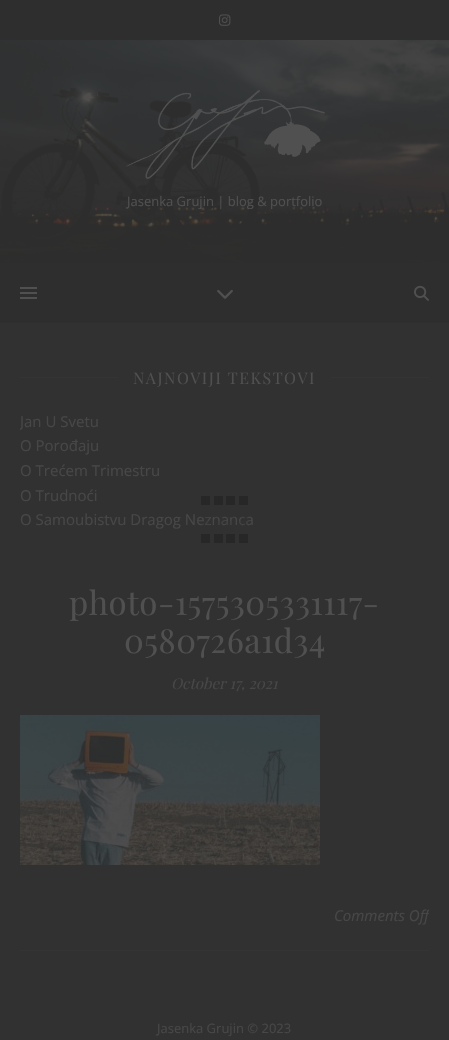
#include "include/core/SkBlurTypes.h"
#include "include/core/SkCanvas.h"
#include "include/core/SkData.h"
#include "include/core/SkFont.h"
#include "include/core/SkFontMgr.h"
#include "include/core/SkImage.h"
#include "include/core/SkMaskFilter.h"
#include "include/core/SkPaint.h"
#include "include/core/SkPathBuilder.h"
#include "include/core/SkTextBlob.h"
#include "include/effects/SkDashPathEffect.h"
#include "include/effects/SkGradientShader.h"
#include "include/utils/SkParsePath.h"

extern sk_sp<SkFontMgr> fontMgr;

void draw(SkCanvas* canvas) {
    SkPaint p;
    p.setAntiAlias(true);
    auto font = [&](const char* family, int weight, float size, bool italic = false) {
        SkFontStyle style(weight, SkFontStyle::kNormal_Width,
            italic ? SkFontStyle::kItalic_Slant : SkFontStyle::kUpright_Slant);
        SkFont result(fontMgr->matchFamilyStyle(family, style), size);
        result.setSubpixel(true);
        return result;
    };
    auto drawTracked = [&](const char* s, float x, float y, const SkFont& font, const SkPaint& ink, float letter, float word) {
        std::vector<SkGlyphID> glyphs(font.countText(s, strlen(s), SkTextEncoding::kUTF8));
        std::vector<float> xs(glyphs.size());
        font.textToGlyphs(s, strlen(s), SkTextEncoding::kUTF8, glyphs);
        font.getXPos(glyphs, xs, x);
        float extra = 0;
        for (size_t i = 0; i < glyphs.size(); i++) {
            xs[i] += extra;
            extra += letter + word * (glyphs[i] == font.unicharToGlyph(' '));
        }
        canvas->drawTextBlob(SkTextBlob::MakeFromPosHGlyphs(glyphs, xs, y, font), 0, 0, ink);
    };
    auto drawPhoto = [&](const char* path, float l, float t, float r, float b) {
        auto image = SkImages::DeferredFromEncodedData(SkData::MakeFromFileName(path));
        canvas->drawImageRect(image, SkRect::MakeLTRB(l, t, r, b), SkSamplingOptions());
    };
    canvas->clear(0xFF313131);
    p.setColor(0xFF2E2E2E);
    canvas->drawRect(SkRect::MakeLTRB(0, 0, 449, 40), p);
    drawPhoto("media/1.png", 219, 14, 231, 26);
    drawPhoto("media/2.png", 0, 40, 449, 263);
    drawPhoto("media/3.png", 126, 90, 325, 179);
    auto font1 = font("Open Sans", 400, 13);
    p.setColor(0xFF505050);
    canvas->drawString("Jasenka Grujin | blog & portfolio", 127, 206, font1, p);
    {
        const struct { float l, t, r, b; SkColor color; } items[] = {
            {0, 263, 449, 323, 0xFF2E2E2E},
            {20, 287, 37, 289, 0xFF505050},
            {20, 292, 37, 294, 0xFF505050},
            {20, 297, 37, 299, 0xFF505050},
        };
        for (auto [l, t, r, b, color] : items) {
            p.setColor(color);
            canvas->drawRect(SkRect::MakeLTRB(l, t, r, b), p);
        }
    }
    drawPhoto("media/4.png", 217, 289, 233, 299);
    drawPhoto("media/5.png", 414, 285, 429, 301);
    p.setColor(0xFF343434);
    canvas->drawRect(SkRect::MakeLTRB(20, 377, 118, 378), p);
    auto font2 = font("Playfair Display", 400, 16);
    p.setColor(0xFF505050);
    drawTracked("NAJNOVIJI TEKSTOVI", 133, 384, font2, p, 1.5f, 0);
    p.setColor(0xFF343434);
    canvas->drawRect(SkRect::MakeLTRB(331, 377, 429, 378), p);
    canvas->save();
    canvas->clipRect(SkRect::MakeLTRB(20, 363, 429, 542));
    auto font3 = font("Open Sans", 400, 15);
    p.setColor(0xFF474747);
    canvas->drawString("Jan U Svetu", 20, 427, font3, p);
    canvas->restore();
    {
        const struct { const char* s; float x, y; } items[] = {
            {"O Porođaju", 20, 451},
            {"O Trećem Trimestru", 20, 476},
            {"O Trudnoći", 20, 501},
            {"O Samoubistvu Dragog Neznanca", 20, 525},
        };
        for (auto [s, x, y] : items) {
            canvas->drawString(s, x, y, font3, p);
        }
    }
    auto font4 = font("Playfair Display", 400, 33);
    p.setColor(0xFF505050);
    drawTracked("photo-1575305331117-", 69, 615, font4, p, 0.5f, 0);
    drawTracked("0580726a1d34", 124, 653, font4, p, 0.5f, 0);
    auto font5 = font("Playfair Display", 400, 15, true);
    p.setColor(0xFF474747);
    canvas->drawString("October 17, 2021", 171, 689, font5, p);
    drawPhoto("media/6.png", 20, 715, 320, 865);
    p.setColor(0xFF343434);
    canvas->drawRect(SkRect::MakeLTRB(20, 950, 429, 951), p);
    canvas->save();
    canvas->clipRect(SkRect::MakeLTRB(20, 880, 429, 950));
    auto font6 = font("Open Sans", 400, 15, true);
    p.setColor(0xFF474747);
    canvas->drawString("Comments Off", 334, 921, font6, p);
    canvas->restore();
    canvas->drawString("Jasenka Grujin © 2023", 157, 1033, font1, p);
    {
        const struct { float l, t, r, b; SkColor color; } items[] = {
            {201, 496, 210, 505, 0xFF272727},
            {214, 496, 223, 505, 0xFF272727},
            {226, 496, 235, 505, 0xFF272727},
            {239, 496, 248, 505, 0xFF272727},
            {201, 517, 210, 518, 0x45333333},
            {215, 517, 219, 518, 0x45333333},
            {226, 517, 235, 518, 0x45333333},
            {241, 517, 248, 518, 0x45333333},
            {201, 521, 210, 525, 0x45333333},
            {218, 521, 223, 525, 0x45333333},
            {226, 521, 232, 525, 0x45333333},
            {239, 521, 248, 525, 0x45333333},
            {201, 534, 210, 543, 0xFF272727},
            {214, 534, 223, 543, 0xFF272727},
            {226, 534, 235, 543, 0xFF272727},
            {239, 534, 248, 543, 0xFF272727},
        };
        for (auto [l, t, r, b, color] : items) {
            p.setColor(color);
            canvas->drawRect(SkRect::MakeLTRB(l, t, r, b), p);
        }
    }
}
